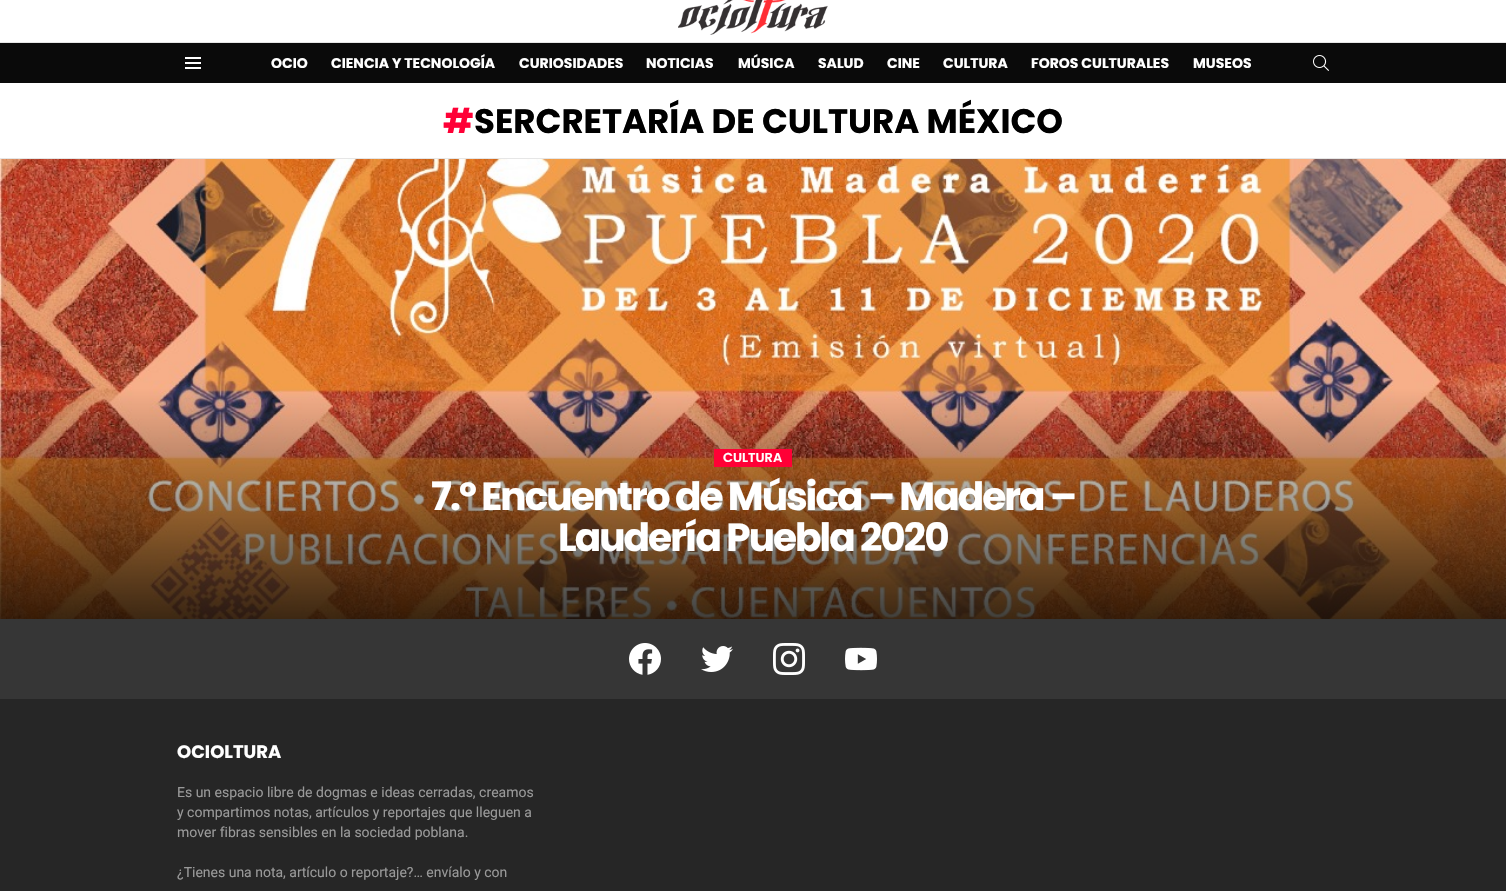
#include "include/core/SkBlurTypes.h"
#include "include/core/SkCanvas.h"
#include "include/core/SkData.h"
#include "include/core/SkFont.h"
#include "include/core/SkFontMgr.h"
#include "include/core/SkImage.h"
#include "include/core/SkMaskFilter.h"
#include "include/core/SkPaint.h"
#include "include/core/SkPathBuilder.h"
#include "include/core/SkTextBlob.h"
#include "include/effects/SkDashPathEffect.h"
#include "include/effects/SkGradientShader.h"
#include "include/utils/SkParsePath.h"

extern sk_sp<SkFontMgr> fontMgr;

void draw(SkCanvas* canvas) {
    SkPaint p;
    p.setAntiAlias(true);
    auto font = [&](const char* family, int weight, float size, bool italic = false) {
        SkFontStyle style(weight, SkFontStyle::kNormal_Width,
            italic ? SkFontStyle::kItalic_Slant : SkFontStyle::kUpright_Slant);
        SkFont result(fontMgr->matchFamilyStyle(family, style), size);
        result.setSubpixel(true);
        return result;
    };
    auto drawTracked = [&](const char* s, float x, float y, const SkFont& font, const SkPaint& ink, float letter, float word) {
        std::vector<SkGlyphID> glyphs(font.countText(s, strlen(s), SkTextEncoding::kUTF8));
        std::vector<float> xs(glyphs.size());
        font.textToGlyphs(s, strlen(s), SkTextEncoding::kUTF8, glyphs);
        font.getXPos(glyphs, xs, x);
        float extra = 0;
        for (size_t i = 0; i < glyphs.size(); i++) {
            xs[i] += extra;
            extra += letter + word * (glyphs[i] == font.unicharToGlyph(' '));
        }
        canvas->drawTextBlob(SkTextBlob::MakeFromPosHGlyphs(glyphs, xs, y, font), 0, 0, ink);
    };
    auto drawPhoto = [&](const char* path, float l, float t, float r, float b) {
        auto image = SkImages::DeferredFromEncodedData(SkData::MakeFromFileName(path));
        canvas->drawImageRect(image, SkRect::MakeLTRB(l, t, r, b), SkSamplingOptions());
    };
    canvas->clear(0xFFFFFFFF);
    drawPhoto("media/1.png", 678, 0, 828, 35);
    p.setColor(0xFFE6E6E6);
    canvas->drawRect(SkRect::MakeLTRB(0, 42, 1506, 43), p);
    p.setColor(0xFF0A0A0A);
    canvas->drawRect(SkRect::MakeLTRB(0, 43, 1506, 83), p);
    drawPhoto("media/2.png", 185, 57, 201, 69);
    auto font1 = font("Poppins", 700, 14);
    p.setColor(0xFFFFFFFF);
    {
        const struct { const char* s; float x, y; } items[] = {
            {"OCIO", 271, 68},
            {"CIENCIA Y TECNOLOGÍA", 331, 68},
            {"CURIOSIDADES", 519, 68},
            {"NOTICIAS", 646, 68},
            {"MÚSICA", 738, 68},
            {"SALUD", 818, 68},
            {"CINE", 887, 68},
            {"CULTURA", 943, 68},
            {"FOROS CULTURALES", 1031, 68},
            {"MUSEOS", 1193, 68},
        };
        for (auto [s, x, y] : items) {
            canvas->drawString(s, x, y, font1, p);
        }
    }
    drawPhoto("media/3.png", 1313, 55, 1329, 71);
    auto font2 = font("Poppins", 700, 34);
    p.setColor(0xFFFF0036);
    canvas->drawString("#", 443, 133, font2, p);
    p.setColor(0xFF000000);
    canvas->drawString("SERCRETARÍA DE CULTURA MÉXICO", 474, 133, font2, p);
    p.setColor(0xFFE6E6E6);
    canvas->drawRect(SkRect::MakeLTRB(0, 158, 1506, 159), p);
    drawPhoto("media/4.png", 0, 159, 1506, 619);
    p.setColor(0xFFFF0036);
    canvas->drawRect(SkRect::MakeLTRB(714, 449, 792, 467), p);
    auto font3 = font("Poppins", 600, 13);
    p.setColor(0xFFFFFFFF);
    canvas->drawString("CULTURA", 723, 462, font3, p);
    auto font4 = font("Poppins", 700, 39);
    drawTracked("7.º Encuentro de Música – Madera –", 431, 510, font4, p, -1.95f, 0);
    drawTracked("Laudería Puebla 2020", 558, 551, font4, p, -1.95f, 0);
    p.setColor(0xFF363636);
    canvas->drawRect(SkRect::MakeLTRB(0, 619, 1506, 699), p);
    drawPhoto("media/5.png", 629, 643, 661, 675);
    drawPhoto("media/6.png", 701, 646, 733, 672);
    drawPhoto("media/7.png", 773, 643, 805, 675);
    drawPhoto("media/8.png", 845, 647, 877, 671);
    p.setColor(0xFF262626);
    canvas->drawRect(SkRect::MakeLTRB(0, 699, 1506, 891), p);
    auto font5 = font("Poppins", 700, 18);
    p.setColor(0xFFFFFFFF);
    canvas->drawString("OCIOLTURA", 177, 758, font5, p);
    auto font6 = font("Roboto", 400, 14);
    p.setColor(0xFF999999);
    {
        const struct { const char* s; float x, y; } items[] = {
            {"Es un espacio libre de dogmas e ideas cerradas, creamos", 177, 797},
            {"y compartimos notas, artículos y reportajes que lleguen a", 177, 817},
            {"mover fibras sensibles en la sociedad poblana.", 177, 837},
            {"¿Tienes una nota, artículo o reportaje?… envíalo y con", 177, 877},
        };
        for (auto [s, x, y] : items) {
            canvas->drawString(s, x, y, font6, p);
        }
    }
}
